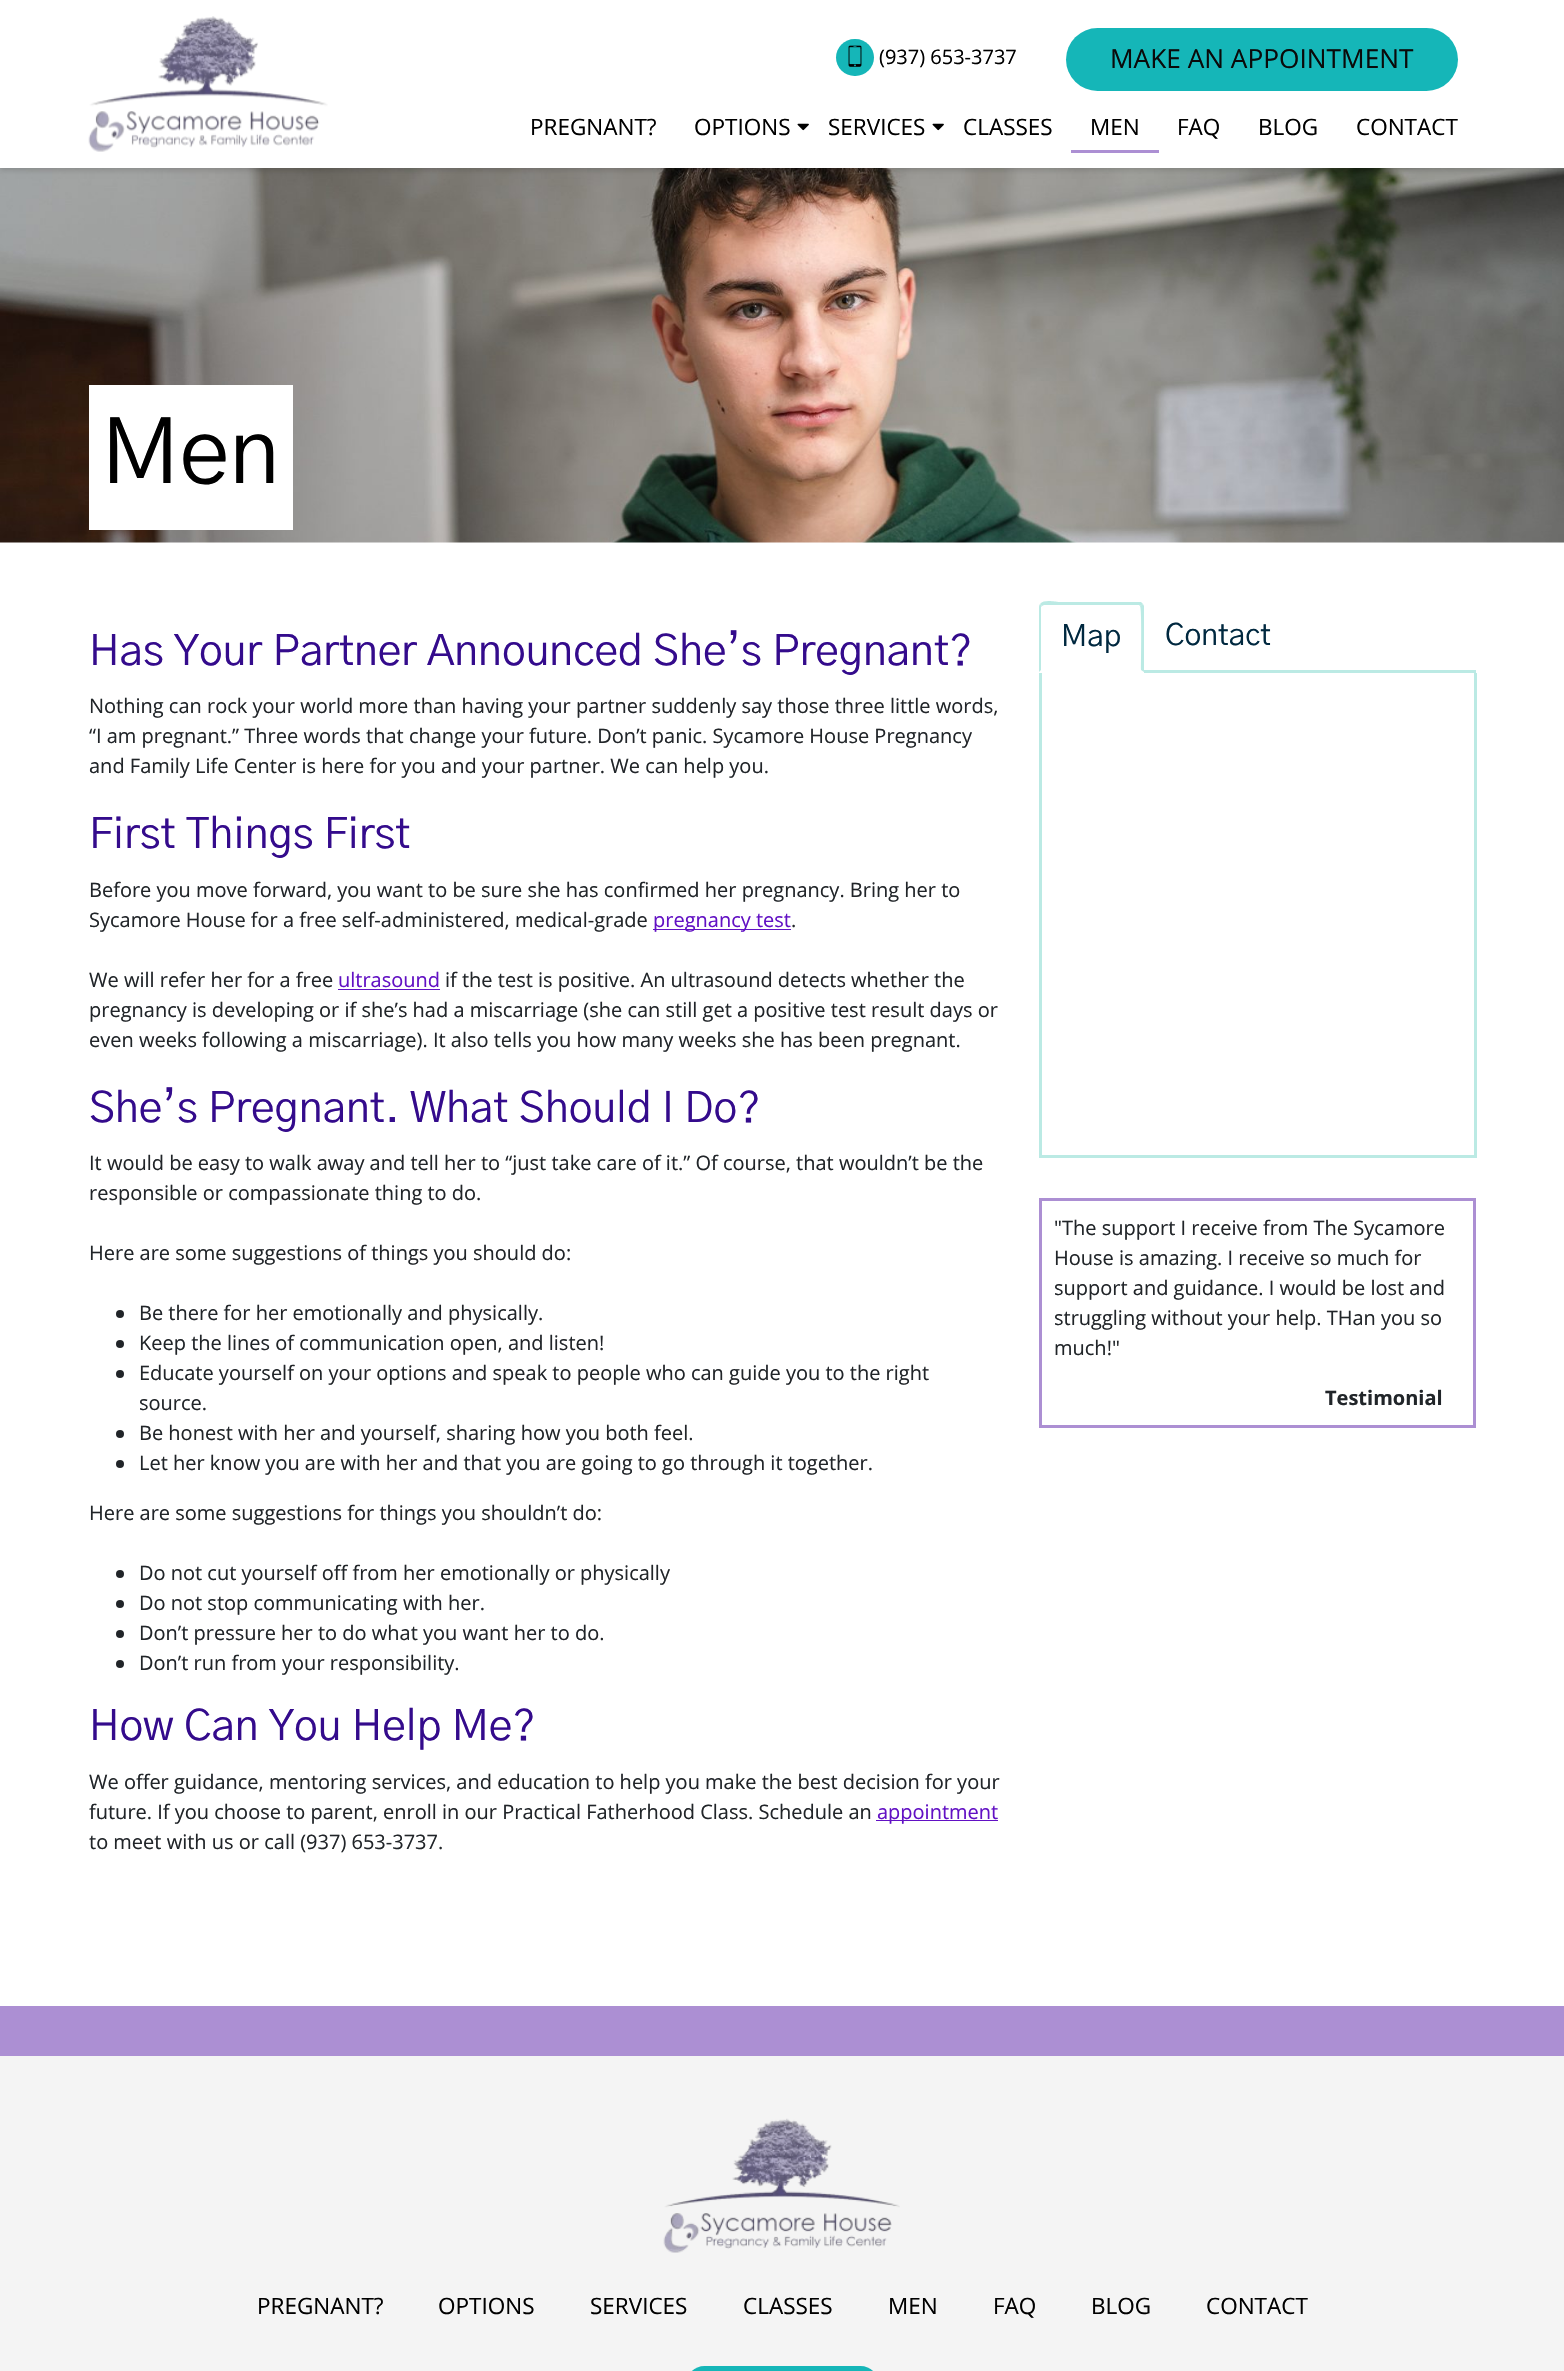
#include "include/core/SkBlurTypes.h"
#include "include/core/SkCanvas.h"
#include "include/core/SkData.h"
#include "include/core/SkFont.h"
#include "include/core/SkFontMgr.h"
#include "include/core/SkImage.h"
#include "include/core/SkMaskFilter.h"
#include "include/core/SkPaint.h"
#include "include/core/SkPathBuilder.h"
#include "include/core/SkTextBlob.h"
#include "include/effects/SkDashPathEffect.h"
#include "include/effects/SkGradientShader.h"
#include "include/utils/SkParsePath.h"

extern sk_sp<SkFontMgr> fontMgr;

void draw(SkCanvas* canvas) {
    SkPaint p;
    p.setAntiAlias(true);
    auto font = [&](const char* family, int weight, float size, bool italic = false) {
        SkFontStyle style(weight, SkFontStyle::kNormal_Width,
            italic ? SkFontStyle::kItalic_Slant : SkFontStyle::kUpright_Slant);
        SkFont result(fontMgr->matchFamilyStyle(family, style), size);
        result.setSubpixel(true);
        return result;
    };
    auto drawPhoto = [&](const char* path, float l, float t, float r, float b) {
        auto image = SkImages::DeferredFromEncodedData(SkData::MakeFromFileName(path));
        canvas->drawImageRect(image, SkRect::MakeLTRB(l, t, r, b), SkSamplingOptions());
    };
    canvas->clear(0xFFFFFFFF);
    drawPhoto("media/4.png", 0, 168, 1564, 543);
    canvas->save();
    canvas->clipPath(SkPathBuilder(SkPathFillType::kEvenOdd).moveTo(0, 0).lineTo(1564, 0).lineTo(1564, 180).lineTo(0, 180).close().moveTo(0, 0).lineTo(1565, 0).lineTo(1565, 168).lineTo(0, 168).close().detach(), true);
    p.setColor(0x29000000);
    p.setMaskFilter(SkMaskFilter::MakeBlur(kNormal_SkBlurStyle, 3));
    canvas->drawRect(SkRect::MakeLTRB(0, 3, 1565, 170), p);
    p.setMaskFilter(nullptr);
    canvas->restore();
    p.setColor(0xE6FFFFFF);
    canvas->drawRect(SkRect::MakeLTRB(0, 167, 1564, 168), p);
    drawPhoto("media/1.png", 88, 16, 328, 152);
    p.setColor(0xFF15B6B8);
    canvas->drawRoundRect(SkRect::MakeLTRB(836, 39, 874, 76), 18.5f, 18.5f, p);
    drawPhoto("media/2.png", 848, 45, 862, 67);
    auto font1 = font("Open Sans", 400, 20);
    p.setColor(0xFF000000);
    canvas->drawString("(937) 653-3737", 879, 64, font1, p);
    p.setColor(0xFF15B6B8);
    canvas->drawRoundRect(SkRect::MakeLTRB(1066, 28, 1458, 91), 31.5f, 31.5f, p);
    auto font2 = font("Open Sans", 400, 26.25f);
    p.setColor(0xFF0A0A0A);
    canvas->drawString("MAKE AN APPOINTMENT", 1110, 68, font2, p);
    auto font3 = font("Open Sans", 400, 22.5f);
    p.setColor(0xFF000000);
    canvas->drawString("PREGNANT?", 530, 135, font3, p);
    canvas->drawString("OPTIONS", 694, 135, font3, p);
    drawPhoto("media/3.png", 797, 123, 809, 131);
    canvas->drawString("SERVICES", 828, 135, font3, p);
    drawPhoto("media/3.png", 932, 123, 944, 131);
    canvas->drawString("CLASSES", 963, 135, font3, p);
    p.setColor(0xFFAC8FD3);
    canvas->drawRect(SkRect::MakeLTRB(1071, 150, 1159, 153), p);
    p.setColor(0xFF000000);
    {
        const struct { const char* s; float x, y; } items[] = {
            {"MEN", 1090, 135},
            {"FAQ", 1177, 135},
            {"BLOG", 1258, 135},
            {"CONTACT", 1356, 135},
        };
        for (auto [s, x, y] : items) {
            canvas->drawString(s, x, y, font3, p);
        }
    }
    p.setColor(0xFFFFFFFF);
    canvas->drawRect(SkRect::MakeLTRB(89, 385, 293, 530), p);
    auto font4 = font("Gothic A1", 400, 90);
    p.setColor(0xFF000000);
    canvas->drawString("Men", 101, 483, font4, p);
    auto font5 = font("Gothic A1", 400, 42.5f);
    p.setColor(0xFF340B8C);
    canvas->drawString("Has Your Partner Announced She’s Pregnant?", 89, 665, font5, p);
    p.setColor(0xFF212529);
    {
        const struct { const char* s; float x, y; } items[] = {
            {"Nothing can rock your world more than having your partner suddenly say those three little words,", 89, 713},
            {"“I am pregnant.” Three words that change your future. Don’t panic. Sycamore House Pregnancy", 89, 743},
            {"and Family Life Center is here for you and your partner. We can help you.", 89, 773},
        };
        for (auto [s, x, y] : items) {
            canvas->drawString(s, x, y, font1, p);
        }
    }
    p.setColor(0xFF340B8C);
    canvas->drawString("First Things First", 89, 848, font5, p);
    p.setColor(0xFF212529);
    canvas->drawString("Before you move forward, you want to be sure she has confirmed her pregnancy. Bring her to", 89, 897, font1, p);
    canvas->drawString("Sycamore House for a free self-administered, medical-grade", 89, 927, font1, p);
    p.setColor(0xFF6211C4);
    canvas->drawRect(SkRect::MakeLTRB(653, 929, 791, 930), p);
    canvas->drawString("pregnancy test", 653, 927, font1, p);
    p.setColor(0xFF212529);
    canvas->drawString(".", 791, 927, font1, p);
    canvas->drawString("We will refer her for a free", 89, 987, font1, p);
    p.setColor(0xFF6211C4);
    canvas->drawString("ultrasound", 338, 987, font1, p);
    canvas->drawRect(SkRect::MakeLTRB(338, 989, 440, 990), p);
    p.setColor(0xFF212529);
    {
        const struct { const char* s; float x, y; } items[] = {
            {"if the test is positive. An ultrasound detects whether the", 445, 987},
            {"pregnancy is developing or if she’s had a miscarriage (she can still get a positive test result days or", 89, 1017},
            {"even weeks following a miscarriage). It also tells you how many weeks she has been pregnant.", 89, 1047},
        };
        for (auto [s, x, y] : items) {
            canvas->drawString(s, x, y, font1, p);
        }
    }
    p.setColor(0xFF340B8C);
    canvas->drawString("She’s Pregnant. What Should I Do?", 89, 1122, font5, p);
    p.setColor(0xFF212529);
    {
        const struct { const char* s; float x, y; } items[] = {
            {"It would be easy to walk away and tell her to “just take care of it.” Of course, that wouldn’t be the", 89, 1170},
            {"responsible or compassionate thing to do.", 89, 1200},
            {"Here are some suggestions of things you should do:", 89, 1260},
        };
        for (auto [s, x, y] : items) {
            canvas->drawString(s, x, y, font1, p);
        }
    }
    canvas->drawCircle(120, 1314, 4, p);
    canvas->drawString("Be there for her emotionally and physically.", 139, 1320, font1, p);
    canvas->drawCircle(120, 1344, 4, p);
    canvas->drawString("Keep the lines of communication open, and listen!", 139, 1350, font1, p);
    canvas->drawCircle(120, 1374, 4, p);
    canvas->drawString("Educate yourself on your options and speak to people who can guide you to the right", 139, 1380, font1, p);
    canvas->drawString("source.", 139, 1410, font1, p);
    canvas->drawCircle(120, 1434, 4, p);
    canvas->drawString("Be honest with her and yourself, sharing how you both feel.", 139, 1440, font1, p);
    canvas->drawCircle(120, 1464, 4, p);
    canvas->drawString("Let her know you are with her and that you are going to go through it together.", 139, 1470, font1, p);
    canvas->drawString("Here are some suggestions for things you shouldn’t do:", 89, 1520, font1, p);
    canvas->drawCircle(120, 1574, 4, p);
    canvas->drawString("Do not cut yourself off from her emotionally or physically", 139, 1580, font1, p);
    canvas->drawCircle(120, 1604, 4, p);
    canvas->drawString("Do not stop communicating with her.", 139, 1610, font1, p);
    canvas->drawCircle(120, 1634, 4, p);
    canvas->drawString("Don’t pressure her to do what you want her to do.", 139, 1640, font1, p);
    canvas->drawCircle(120, 1664, 4, p);
    canvas->drawString("Don’t run from your responsibility.", 139, 1670, font1, p);
    p.setColor(0xFF340B8C);
    canvas->drawString("How Can You Help Me?", 89, 1740, font5, p);
    p.setColor(0xFF212529);
    canvas->drawString("We offer guidance, mentoring services, and education to help you make the best decision for your", 89, 1789, font1, p);
    canvas->drawString("future. If you choose to parent, enroll in our Practical Fatherhood Class. Schedule an", 89, 1819, font1, p);
    p.setColor(0xFF6211C4);
    canvas->drawRect(SkRect::MakeLTRB(876, 1820, 998, 1821), p);
    canvas->drawString("appointment", 877, 1819, font1, p);
    p.setColor(0xFF212529);
    canvas->drawString("to meet with us or call (937) 653-3737.", 89, 1849, font1, p);
    p.setColor(0xFFBBEAE4);
    canvas->drawRect(SkRect::MakeLTRB(1144, 670, 1476, 673), p);
    canvas->drawPath(SkPathBuilder().moveTo(1044, 605).lineTo(1042, 606).lineTo(1040, 604).cubicTo(1044, 599, 1056, 602, 1058, 602).lineTo(1141, 602).lineTo(1143, 604).lineTo(1140, 606).lineTo(1139, 605).close().detach(), p);
    canvas->drawPath(SkPathBuilder().moveTo(1144, 672).lineTo(1141, 670).cubicTo(1141, 662, 1142, 608, 1140, 606).lineTo(1143, 604).lineTo(1144, 606).close().detach(), p);
    canvas->drawPath(SkPathBuilder().moveTo(1039, 672).lineTo(1039, 608).cubicTo(1039, 607, 1039, 605, 1040, 604).lineTo(1042, 606).lineTo(1041, 607).lineTo(1041, 670).close().detach(), p);
    auto font6 = font("Gothic A1", 400, 30);
    p.setColor(0xFF00283F);
    canvas->drawString("Map", 1061, 646, font6, p);
    canvas->drawString("Contact", 1165, 645, font6, p);
    {
        const struct { float l, t, r, b; SkColor color; } items[] = {
            {1474, 673, 1477, 1158, 0xFFBBEAE4},
            {1039, 1155, 1476, 1158, 0xFFBBEAE4},
            {1039, 673, 1042, 1158, 0xFFBBEAE4},
        };
        for (auto [l, t, r, b, color] : items) {
            p.setColor(color);
            canvas->drawRect(SkRect::MakeLTRB(l, t, r, b), p);
        }
    }
    p.setStyle(SkPaint::kStroke_Style);
    p.setStrokeWidth(3);
    p.setColor(0xFFAC8FD3);
    canvas->drawRect(SkRect::MakeLTRB(1040.5f, 1199.5f, 1474.5f, 1426.5f), p);
    p.setStyle(SkPaint::kFill_Style);
    p.setColor(0xFF212529);
    {
        const struct { const char* s; float x, y; } items[] = {
            {"\"The support I receive from The Sycamore", 1054, 1235},
            {"House is amazing. I receive so much for", 1054, 1265},
            {"support and guidance. I would be lost and", 1054, 1295},
            {"struggling without your help. THan you so", 1054, 1325},
            {"much!\"", 1054, 1355},
        };
        for (auto [s, x, y] : items) {
            canvas->drawString(s, x, y, font1, p);
        }
    }
    auto font7 = font("Open Sans", 700, 20);
    canvas->drawString("Testimonial", 1325, 1405, font7, p);
    p.setColor(0xFFF4F4F4);
    canvas->drawRect(SkRect::MakeLTRB(0, 2056, 1564, 2371), p);
    p.setColor(0xFFAC8FD3);
    canvas->drawRect(SkRect::MakeLTRB(0, 2006, 1564, 2056), p);
    drawPhoto("media/5.png", 663, 2118, 900, 2253);
    p.setColor(0xFF000000);
    {
        const struct { const char* s; float x, y; } items[] = {
            {"PREGNANT?", 257, 2314},
            {"OPTIONS", 438, 2314},
            {"SERVICES", 590, 2314},
            {"CLASSES", 743, 2314},
            {"MEN", 888, 2314},
            {"FAQ", 993, 2314},
            {"BLOG", 1091, 2314},
            {"CONTACT", 1206, 2314},
        };
        for (auto [s, x, y] : items) {
            canvas->drawString(s, x, y, font3, p);
        }
    }
    p.setColor(0xFF15B6B8);
    canvas->drawRoundRect(SkRect::MakeLTRB(686, 2366, 879, 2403), 32, 32, p);
}
